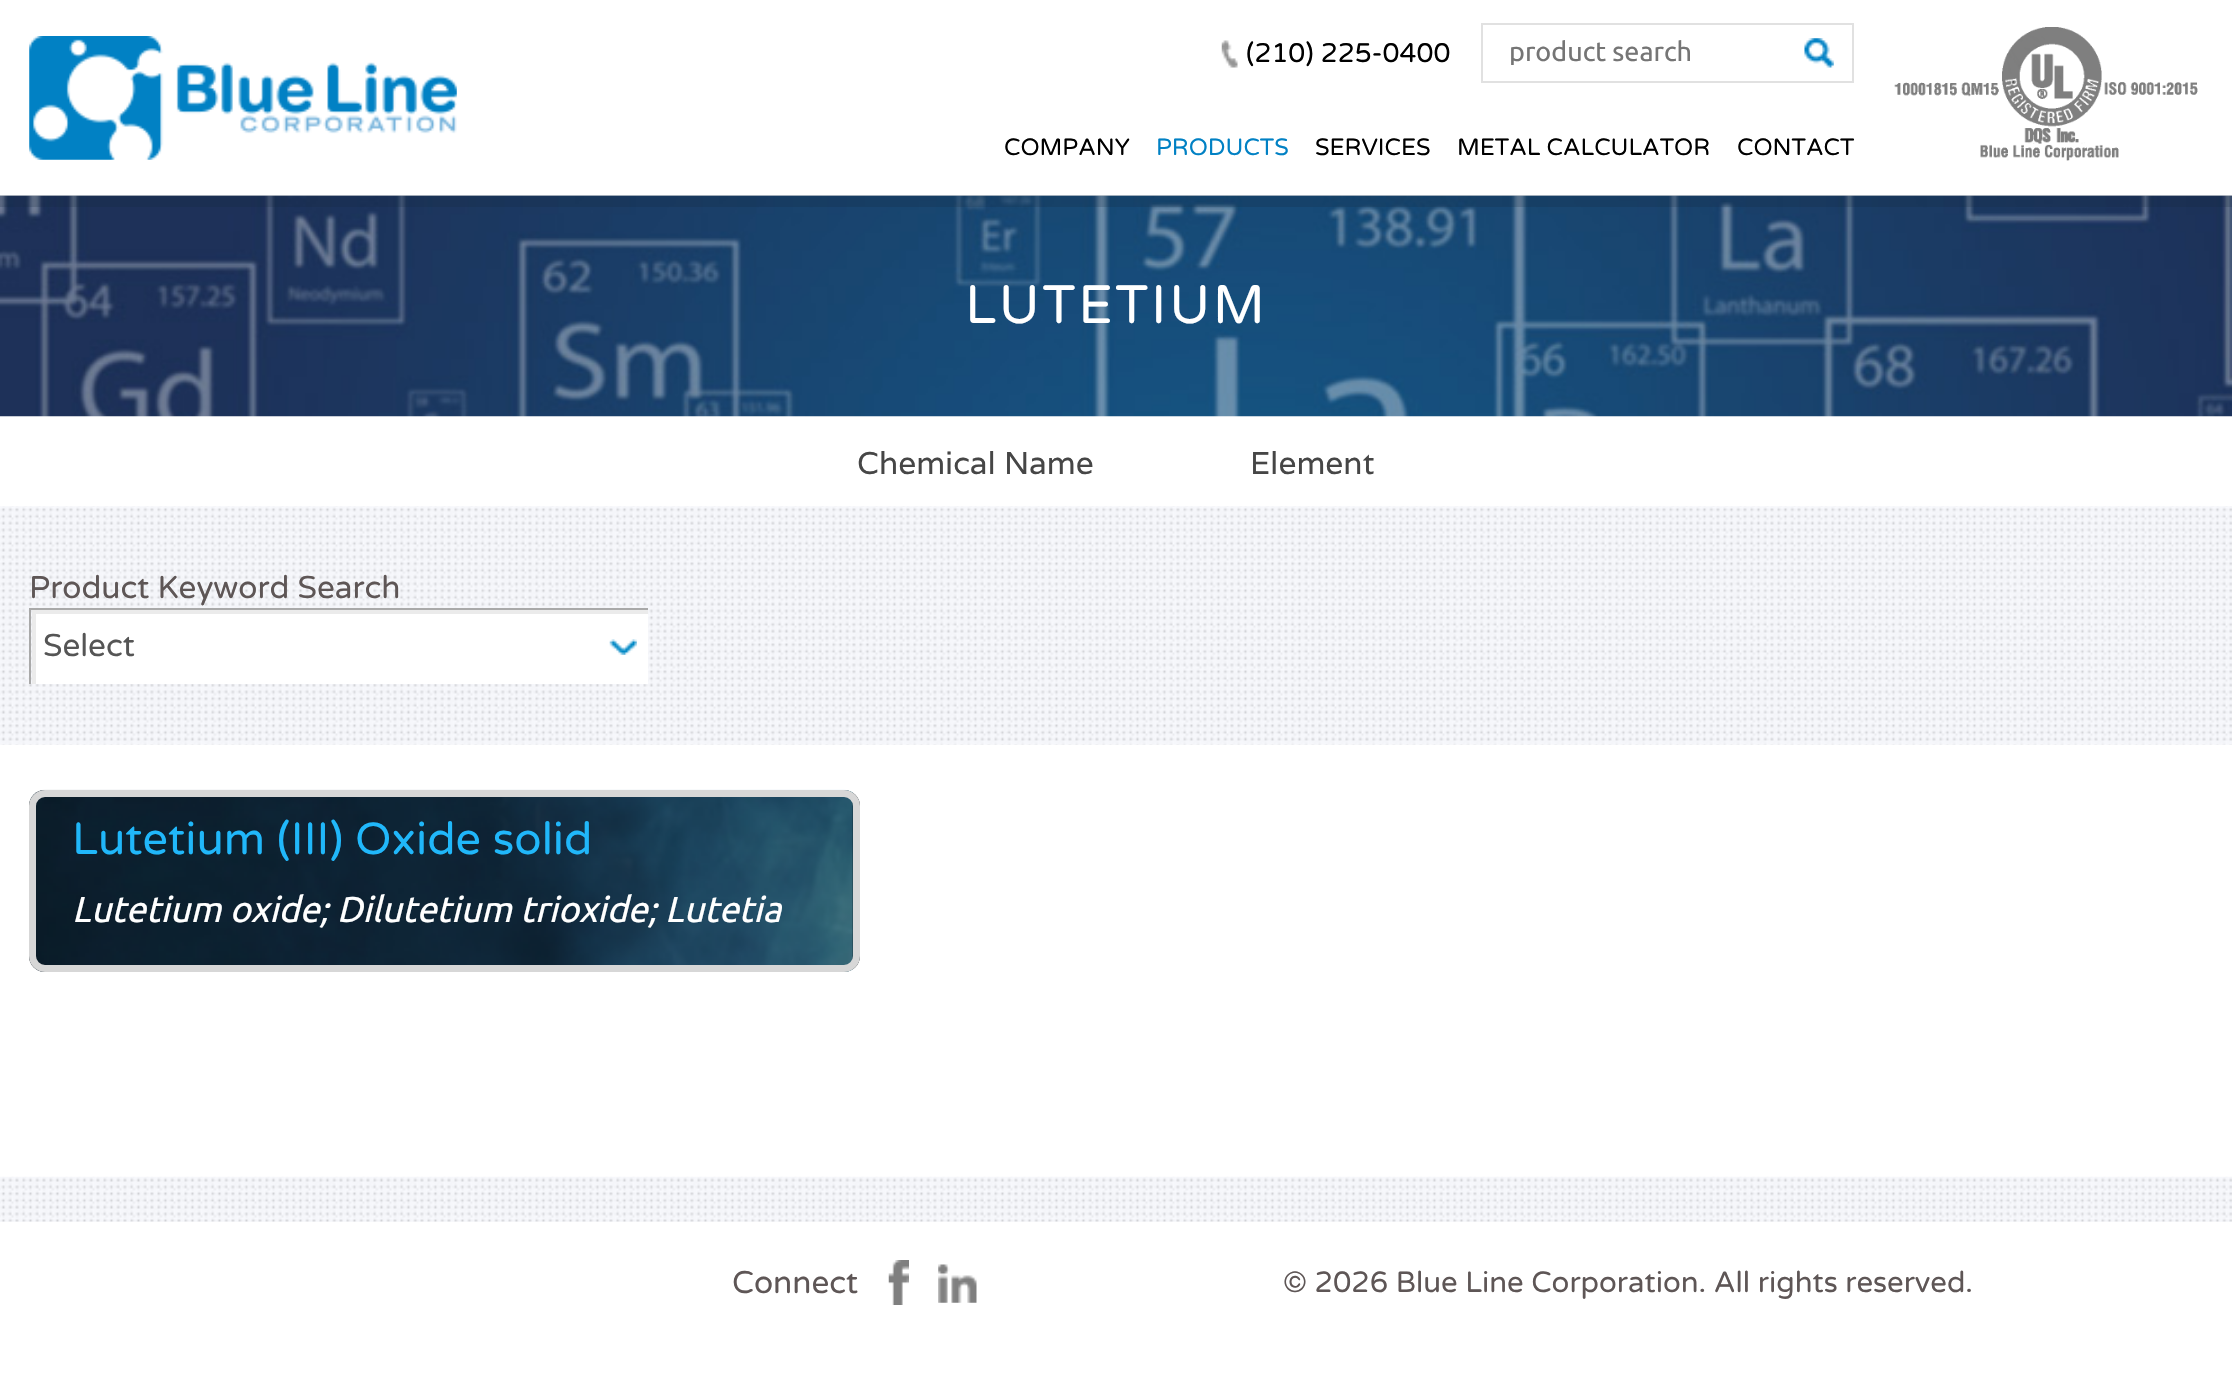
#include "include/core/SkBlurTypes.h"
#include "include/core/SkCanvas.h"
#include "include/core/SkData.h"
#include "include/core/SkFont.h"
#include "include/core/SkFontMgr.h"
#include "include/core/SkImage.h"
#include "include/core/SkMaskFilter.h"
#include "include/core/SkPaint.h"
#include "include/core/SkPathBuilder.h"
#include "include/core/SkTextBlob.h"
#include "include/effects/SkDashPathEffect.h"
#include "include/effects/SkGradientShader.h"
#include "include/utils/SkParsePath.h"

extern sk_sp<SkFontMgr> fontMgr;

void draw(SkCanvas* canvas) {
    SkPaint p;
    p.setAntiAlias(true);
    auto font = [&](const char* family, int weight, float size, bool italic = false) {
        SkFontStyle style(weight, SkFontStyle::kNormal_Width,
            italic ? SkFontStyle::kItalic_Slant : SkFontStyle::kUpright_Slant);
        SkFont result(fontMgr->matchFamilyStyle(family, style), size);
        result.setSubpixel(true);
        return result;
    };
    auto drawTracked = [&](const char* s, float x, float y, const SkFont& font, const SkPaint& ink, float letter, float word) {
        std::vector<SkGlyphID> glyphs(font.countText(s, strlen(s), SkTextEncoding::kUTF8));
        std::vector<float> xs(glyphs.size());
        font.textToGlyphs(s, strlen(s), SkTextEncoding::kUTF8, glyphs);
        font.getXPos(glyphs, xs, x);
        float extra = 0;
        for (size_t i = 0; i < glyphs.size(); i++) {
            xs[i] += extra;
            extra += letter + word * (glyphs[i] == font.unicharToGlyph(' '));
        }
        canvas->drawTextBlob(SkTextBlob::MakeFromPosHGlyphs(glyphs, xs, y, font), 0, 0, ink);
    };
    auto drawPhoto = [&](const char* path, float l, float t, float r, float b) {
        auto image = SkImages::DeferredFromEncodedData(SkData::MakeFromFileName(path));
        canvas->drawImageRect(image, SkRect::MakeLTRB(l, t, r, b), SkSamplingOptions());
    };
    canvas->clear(0xFFFFFFFF);
    drawPhoto("media/1.png", 29, 36, 457, 160);
    drawPhoto("media/2.png", 1221, 40, 1238, 68);
    auto font1 = font("Varela Round", 400, 27);
    p.setColor(0xFF000000);
    canvas->drawString("(210) 225-0400", 1246, 62, font1, p);
    p.setStyle(SkPaint::kStroke_Style);
    p.setStrokeWidth(2);
    p.setColor(0xFFE1E1E1);
    canvas->drawRect(SkRect::MakeLTRB(1482, 24, 1853, 82), p);
    canvas->save();
    canvas->clipRect(SkRect::MakeLTRB(1510, 36, 1778, 65));
    auto font2 = font("Ubuntu", 400, 27);
    p.setStyle(SkPaint::kFill_Style);
    p.setColor(0xFF757575);
    canvas->drawString("product search", 1509, 61, font2, p);
    canvas->restore();
    drawPhoto("media/3.png", 1804, 38, 1834, 68);
    drawPhoto("media/4.png", 1894, 27, 2198, 161);
    auto font3 = font("Varela Round", 400, 23.6f);
    p.setColor(0xFF000000);
    canvas->drawString("COMPANY", 1004, 155, font3, p);
    p.setColor(0xFF0181C4);
    canvas->drawString("PRODUCTS", 1156, 155, font3, p);
    p.setColor(0xFF000000);
    {
        const struct { const char* s; float x, y; } items[] = {
            {"SERVICES", 1315, 155},
            {"METAL CALCULATOR", 1457, 155},
            {"CONTACT", 1737, 155},
        };
        for (auto [s, x, y] : items) {
            canvas->drawString(s, x, y, font3, p);
        }
    }
    drawPhoto("media/5.png", 0, 195, 2232, 417);
    p.setColor(0x330F2337);
    canvas->drawRect(SkRect::MakeLTRB(0, 195, 2232, 207), p);
    auto font4 = font("Varela Round", 400, 54);
    p.setColor(0xFFFFFFFF);
    drawTracked("LUTETIUM", 965, 323, font4, p, 2.75f, 0);
    auto font5 = font("Varela", 400, 31.5f);
    p.setColor(0xFF464646);
    canvas->drawString("Chemical Name", 857, 474, font5, p);
    canvas->drawString("Element", 1250, 474, font5, p);
    drawPhoto("media/6.png", 0, 506, 2232, 745);
    auto font6 = font("Varela Round", 400, 31.5f);
    p.setColor(0xFF5E5656);
    canvas->drawString("Product Keyword Search", 29, 598, font6, p);
    p.setColor(0xFFFFFFFF);
    canvas->drawRect(SkRect::MakeLTRB(36, 614, 648, 684), p);
    canvas->save();
    canvas->clipRect(SkRect::MakeLTRB(32, 610, 648, 684));
    p.setColor(0xFFEBEBEB);
    canvas->drawPath(SkPathBuilder(SkPathFillType::kEvenOdd).moveTo(-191, 387).lineTo(871, 387).lineTo(871, 907).lineTo(-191, 907).close().moveTo(36, 614).lineTo(652, 614).lineTo(652, 688).lineTo(36, 688).close().detach(), p);
    canvas->restore();
    p.setColor(0xFFA9A9A9);
    canvas->drawRect(SkRect::MakeLTRB(29, 608, 648, 610), p);
    canvas->drawRect(SkRect::MakeLTRB(29, 608, 31, 684), p);
    p.setColor(0xFF555555);
    canvas->drawString("Select", 43, 656, font6, p);
    drawPhoto("media/7.png", 609, 639, 637, 655);
    p.setColor(0xFF051015);
    canvas->drawRoundRect(SkRect::MakeLTRB(29, 790, 860, 972), 16, 16, p);
    drawPhoto("media/8.png", 29, 789, 853, 972);
    p.setStyle(SkPaint::kStroke_Style);
    p.setStrokeWidth(7);
    p.setColor(0xFFD7D7D7);
    canvas->drawRoundRect(SkRect::MakeLTRB(32.5f, 793.5f, 856.5f, 968.5f), 12.5f, 12.5f, p);
    auto font7 = font("Varela Round", 400, 45);
    p.setStyle(SkPaint::kFill_Style);
    p.setColor(0xFF20B7FA);
    canvas->drawString("Lutetium (III) Oxide solid", 72, 854, font7, p);
    auto font8 = font("Ubuntu", 400, 36, true);
    p.setColor(0xFFFFFFFF);
    canvas->drawString("Lutetium oxide; Dilutetium trioxide; Lutetia", 72, 922, font8, p);
    drawPhoto("media/9.png", 0, 1176, 2232, 1222);
    p.setColor(0xFF5E5656);
    canvas->drawString("Connect", 732, 1293, font6, p);
    drawPhoto("media/10.png", 888, 1260, 909, 1305);
    drawPhoto("media/11.png", 938, 1264, 977, 1303);
    auto font9 = font("Varela Round", 400, 29.25f);
    canvas->drawString("© 2026 Blue Line Corporation. All rights reserved.", 1283, 1292, font9, p);
}
